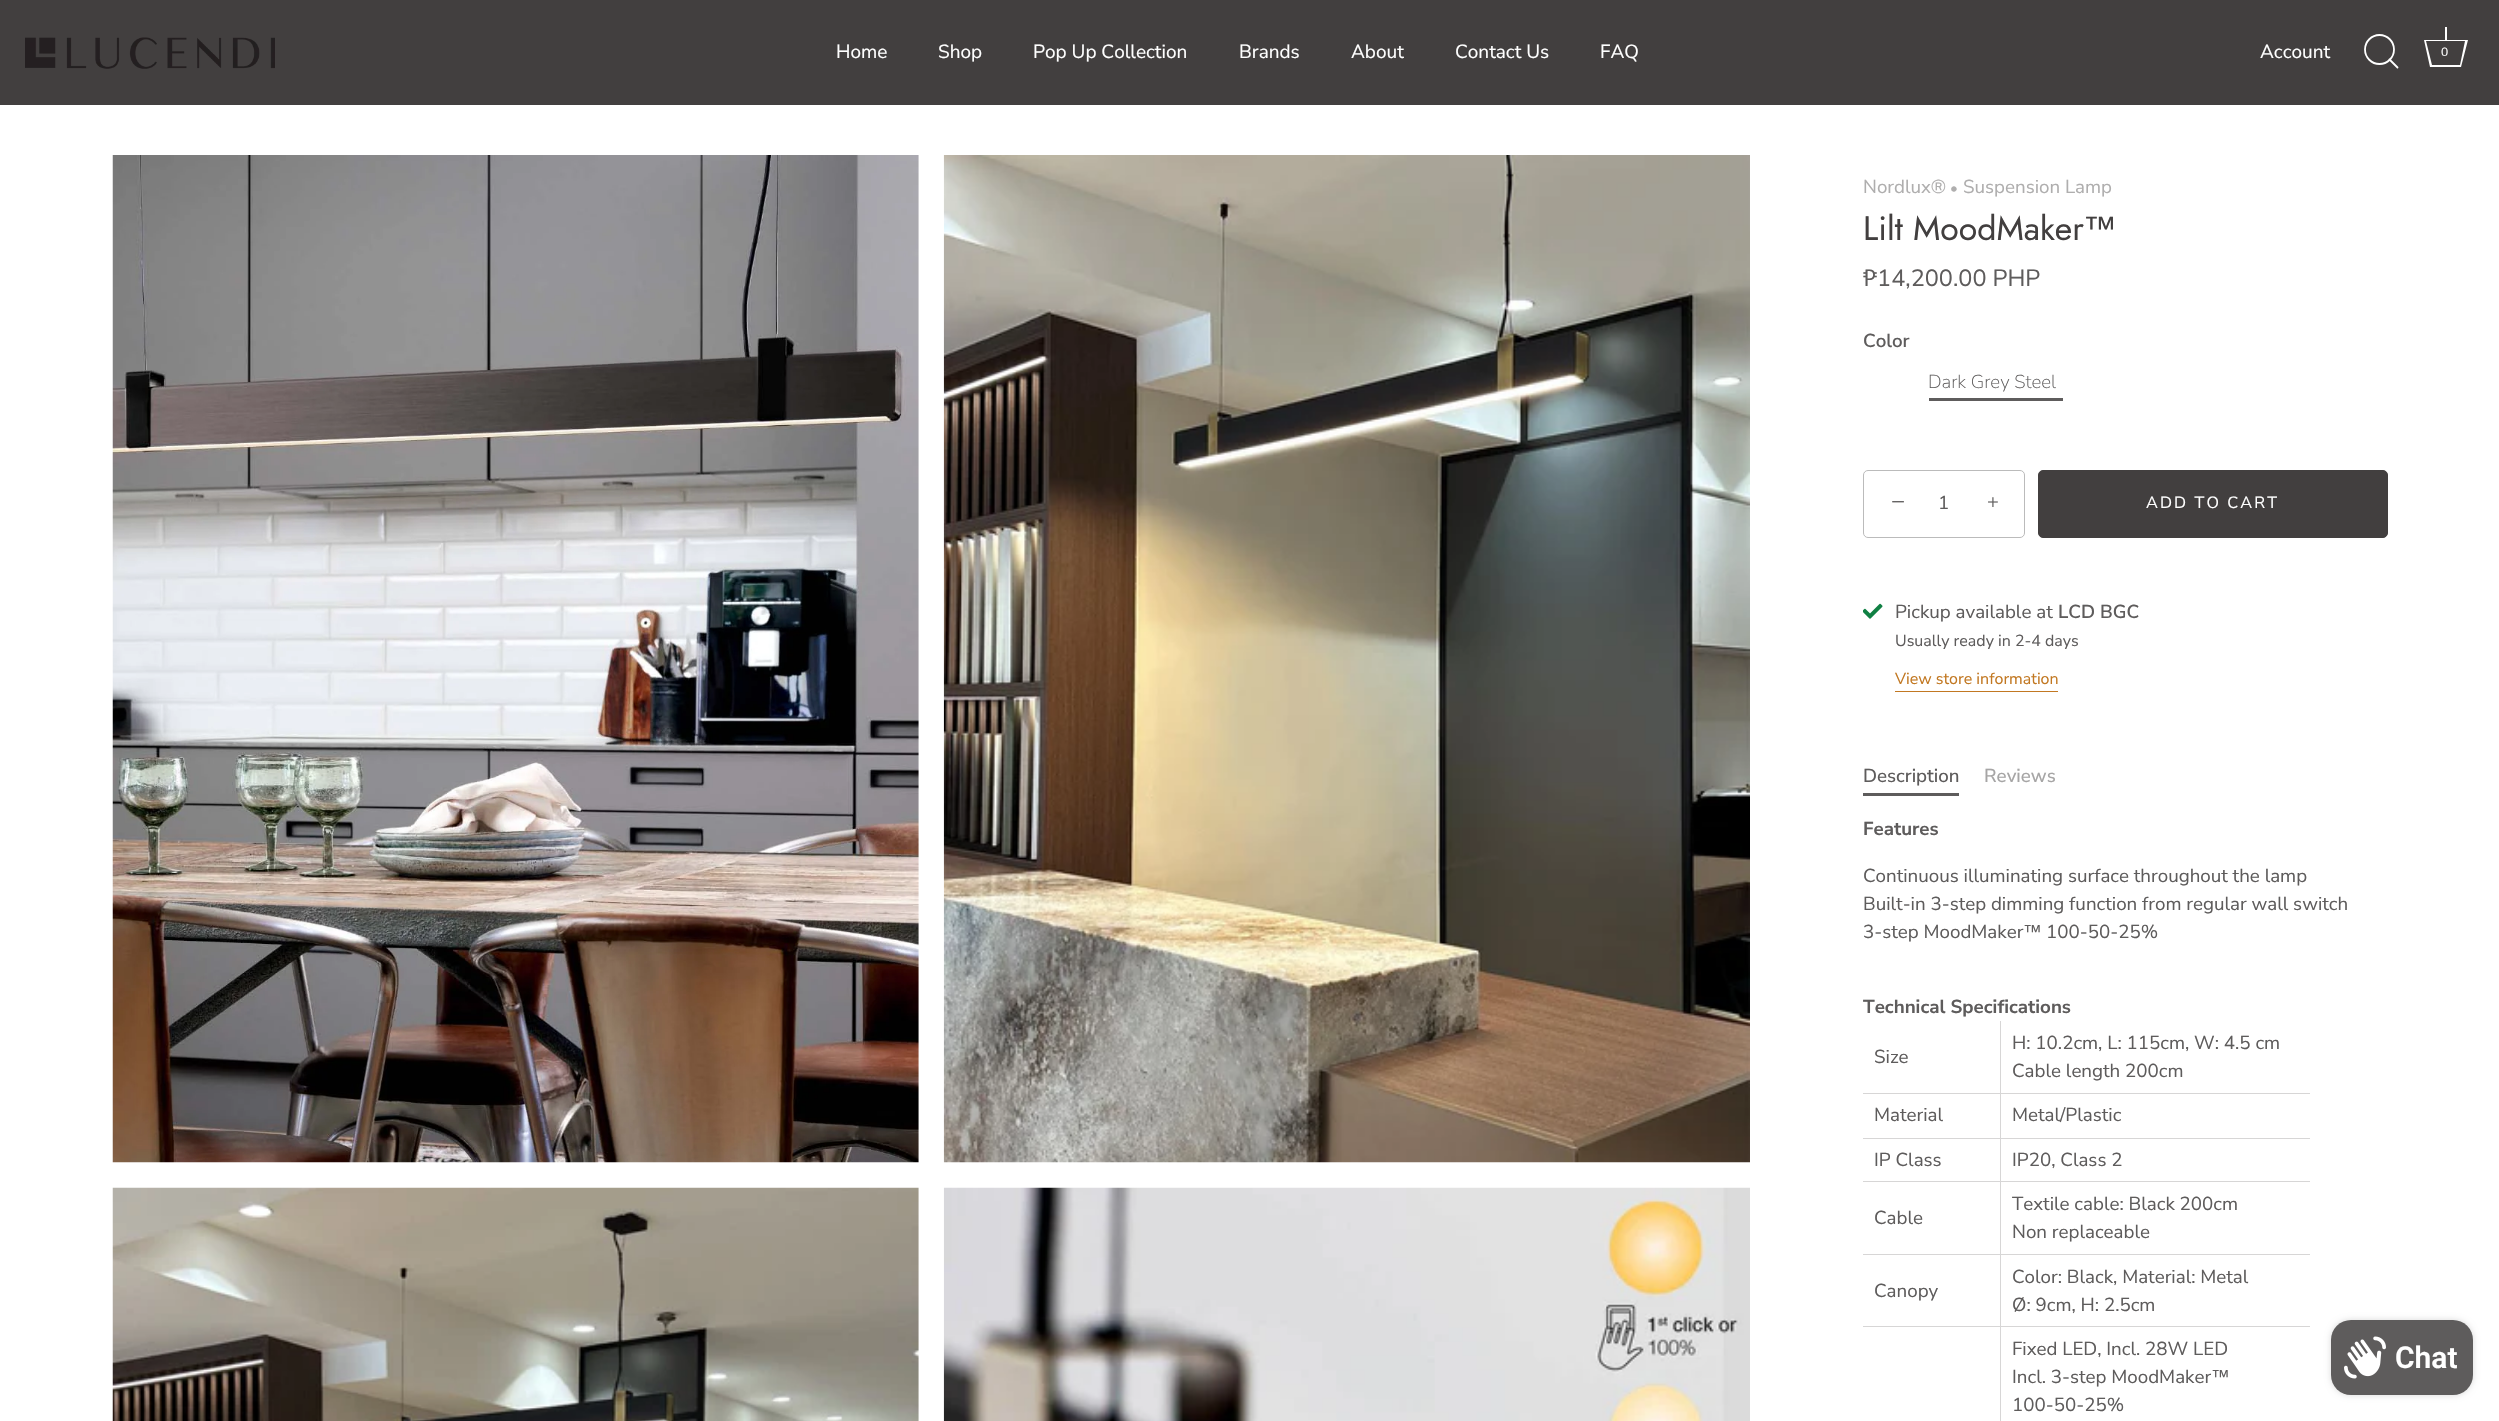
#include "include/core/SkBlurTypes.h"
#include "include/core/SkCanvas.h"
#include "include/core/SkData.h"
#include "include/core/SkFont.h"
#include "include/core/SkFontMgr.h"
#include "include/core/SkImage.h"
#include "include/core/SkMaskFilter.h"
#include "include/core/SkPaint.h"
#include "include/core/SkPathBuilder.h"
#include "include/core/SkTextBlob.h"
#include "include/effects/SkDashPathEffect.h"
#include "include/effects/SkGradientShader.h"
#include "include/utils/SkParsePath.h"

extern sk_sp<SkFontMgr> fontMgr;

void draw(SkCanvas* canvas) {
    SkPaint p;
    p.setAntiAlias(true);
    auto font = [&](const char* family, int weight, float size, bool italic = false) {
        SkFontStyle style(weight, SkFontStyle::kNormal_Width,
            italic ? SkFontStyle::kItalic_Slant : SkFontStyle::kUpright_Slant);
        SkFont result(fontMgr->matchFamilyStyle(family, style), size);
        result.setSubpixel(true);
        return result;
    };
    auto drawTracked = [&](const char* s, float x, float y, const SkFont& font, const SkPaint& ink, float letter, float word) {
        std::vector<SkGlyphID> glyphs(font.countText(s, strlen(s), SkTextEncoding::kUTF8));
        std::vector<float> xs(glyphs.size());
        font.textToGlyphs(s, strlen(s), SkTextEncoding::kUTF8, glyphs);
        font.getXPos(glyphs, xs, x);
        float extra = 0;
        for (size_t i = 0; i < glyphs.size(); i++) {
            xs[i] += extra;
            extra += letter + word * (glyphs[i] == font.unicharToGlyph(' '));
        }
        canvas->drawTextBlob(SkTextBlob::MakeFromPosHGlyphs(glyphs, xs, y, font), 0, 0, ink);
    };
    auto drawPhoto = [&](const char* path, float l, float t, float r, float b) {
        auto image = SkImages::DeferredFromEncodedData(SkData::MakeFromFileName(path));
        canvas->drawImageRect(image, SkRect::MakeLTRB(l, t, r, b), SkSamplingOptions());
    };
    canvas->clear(0xFFFFFFFF);
    p.setColor(0xFF423F3F);
    canvas->drawRect(SkRect::MakeLTRB(0, 0, 2499, 105), p);
    drawPhoto("media/1.png", 25, 37, 275, 69);
    auto font1 = font("Nunito Sans", 400, 19);
    p.setColor(0xFFFFFFFF);
    {
        const struct { const char* s; float x, y; } items[] = {
            {"Home", 836, 58},
            {"Shop", 938, 58},
            {"Pop Up Collection", 1033, 58},
            {"Brands", 1239, 58},
            {"About", 1351, 58},
            {"Contact Us", 1455, 58},
            {"FAQ", 1600, 58},
            {"Account", 2260, 58},
        };
        for (auto [s, x, y] : items) {
            canvas->drawString(s, x, y, font1, p);
        }
    }
    p.setStyle(SkPaint::kStroke_Style);
    p.setStrokeWidth(1.8f);
    canvas->drawCircle(2379.5f, 49.5f, 14.5f, p);
    p.setStrokeCap(SkPaint::kRound_Cap);
    p.setStrokeJoin(SkPaint::kRound_Join);
    canvas->drawPath(SkPathBuilder().moveTo(2397.5f, 67.5f).lineTo(2389.5f, 59.5f).detach(), p);
    p.setStyle(SkPaint::kFill_Style);
    canvas->drawRect(SkRect::MakeLTRB(2445, 27, 2447, 40), p);
    canvas->drawPath(SkPathBuilder().moveTo(2465, 41).lineTo(2460, 65).lineTo(2432, 65).lineTo(2426, 41).lineTo(2465, 41).moveTo(2468, 40).lineTo(2424, 40).lineTo(2430, 67).lineTo(2461, 67).close().detach(), p);
    auto font2 = font("Nunito Sans", 400, 12);
    canvas->drawString("0", 2441, 56, font2, p);
    drawPhoto("media/2.png", 112, 155, 919, 1163);
    drawPhoto("media/3.png", 112, 1187, 919, 1421);
    drawPhoto("media/4.png", 943, 155, 1750, 1163);
    drawPhoto("media/5.png", 943, 1187, 1750, 1421);
    auto font3 = font("Nunito Sans", 400, 18.75f);
    p.setColor(0xFFAFAEAE);
    canvas->drawString("Nordlux®", 1863, 193, font3, p);
    auto font4 = font("Nunito Sans", 400, 15);
    canvas->drawString("•", 1950, 193, font4, p);
    canvas->drawString("Suspension Lamp", 1963, 193, font3, p);
    auto font5 = font("Jost", 400, 33.75f);
    p.setColor(0xFF423F3F);
    canvas->drawString("Lilt MoodMaker", 1863, 240, font5, p);
    auto font6 = font("Liberation Sans", 400, 33.75f);
    canvas->drawString("™", 2083, 240, font6, p);
    auto font7 = font("Nunito Sans", 400, 23.5f);
    p.setColor(0xFF5E5C5C);
    canvas->drawString("₱14,200.00 PHP", 1863, 286, font7, p);
    auto font8 = font("Nunito Sans", 600, 18.75f);
    canvas->drawString("Color", 1863, 347, font8, p);
    auto font9 = font("Nunito Sans", 200, 18.75f);
    canvas->drawString("Dark Grey Steel", 1928, 388, font9, p);
    canvas->drawRect(SkRect::MakeLTRB(1929, 398, 2063, 401), p);
    p.setStyle(SkPaint::kStroke_Style);
    p.setStrokeWidth(1);
    p.setStrokeCap(SkPaint::kButt_Cap);
    p.setStrokeJoin(SkPaint::kMiter_Join);
    p.setColor(0xFFBBBBBB);
    canvas->drawRoundRect(SkRect::MakeLTRB(1863.5f, 470.5f, 2024.5f, 537.5f), 4.5f, 4.5f, p);
    auto font10 = font("Liberation Serif", 400, 25);
    p.setStyle(SkPaint::kFill_Style);
    p.setColor(0xFF5E5C5C);
    canvas->drawString("−", 1891, 510, font10, p);
    drawTracked("1", 1938, 509, font3, p, 1, 0);
    auto font11 = font("Liberation Serif", 400, 21);
    canvas->drawString("+", 1987, 509, font11, p);
    p.setColor(0xFF423F3F);
    canvas->drawRoundRect(SkRect::MakeLTRB(2038.5f, 470.5f, 2387.5f, 537.5f), 4.5f, 4.5f, p);
    p.setStyle(SkPaint::kStroke_Style);
    canvas->drawRoundRect(SkRect::MakeLTRB(2038.5f, 470.5f, 2387.5f, 537.5f), 4.5f, 4.5f, p);
    auto font12 = font("Nunito Sans", 400, 16.25f);
    p.setStyle(SkPaint::kFill_Style);
    p.setColor(0xFFFFFFFF);
    drawTracked("ADD TO CART", 2146, 508, font12, p, 2.1f, 0);
    drawPhoto("media/6.png", 1863, 603, 1883, 619);
    p.setColor(0xFF5E5C5C);
    canvas->drawString("Pickup available at", 1895, 618, font3, p);
    canvas->drawString("LCD BGC", 2058, 618, font8, p);
    auto font13 = font("Nunito Sans", 400, 16);
    canvas->drawString("Usually ready in 2-4 days", 1895, 646, font13, p);
    p.setColor(0xFFC27822);
    canvas->drawString("View store information", 1895, 684, font13, p);
    canvas->drawRect(SkRect::MakeLTRB(1895, 691, 2058, 692), p);
    auto font14 = font("Nunito Sans", 500, 18.75f);
    p.setColor(0xFF5E5C5C);
    canvas->drawString("Description", 1863, 782, font14, p);
    p.setColor(0xFFA6A5A5);
    canvas->drawString("Reviews", 1984, 782, font14, p);
    p.setColor(0xFF5E5C5C);
    canvas->drawRect(SkRect::MakeLTRB(1863, 793, 1959, 796), p);
    auto font15 = font("Nunito Sans", 700, 18.75f);
    canvas->drawString("Features", 1863, 835, font15, p);
    {
        const struct { const char* s; float x, y; } items[] = {
            {"Continuous illuminating surface throughout the lamp", 1863, 882},
            {"Built-in 3-step dimming function from regular wall switch", 1863, 910},
            {"3-step MoodMaker", 1863, 938},
        };
        for (auto [s, x, y] : items) {
            canvas->drawString(s, x, y, font3, p);
        }
    }
    auto font16 = font("Liberation Sans", 400, 18.75f);
    canvas->drawString("™", 2023, 938, font16, p);
    canvas->drawString("100-50-25%", 2046, 938, font3, p);
    canvas->drawString("Technical Specifications", 1863, 1013, font15, p);
    {
        const struct { const char* s; float x, y; } items[] = {
            {"Size", 1874, 1063},
            {"H: 10.2cm, L: 115cm, W: 4.5 cm", 2012, 1049},
            {"Cable length 200cm", 2012, 1077},
        };
        for (auto [s, x, y] : items) {
            canvas->drawString(s, x, y, font3, p);
        }
    }
    p.setColor(0xFFD7D6D6);
    canvas->drawRect(SkRect::MakeLTRB(1863, 1093, 2310, 1094), p);
    p.setColor(0xFF5E5C5C);
    canvas->drawString("Material", 1874, 1121, font3, p);
    canvas->drawString("Metal/Plastic", 2012, 1121, font3, p);
    p.setColor(0xFFD7D6D6);
    canvas->drawRect(SkRect::MakeLTRB(1863, 1138, 2310, 1139), p);
    p.setColor(0xFF5E5C5C);
    canvas->drawString("IP Class", 1874, 1166, font3, p);
    canvas->drawString("IP20, Class 2", 2012, 1166, font3, p);
    p.setColor(0xFFD7D6D6);
    canvas->drawRect(SkRect::MakeLTRB(1863, 1181, 2310, 1182), p);
    p.setColor(0xFF5E5C5C);
    {
        const struct { const char* s; float x, y; } items[] = {
            {"Cable", 1874, 1224},
            {"Textile cable: Black 200cm", 2012, 1210},
            {"Non replaceable", 2012, 1238},
        };
        for (auto [s, x, y] : items) {
            canvas->drawString(s, x, y, font3, p);
        }
    }
    p.setColor(0xFFD7D6D6);
    canvas->drawRect(SkRect::MakeLTRB(1863, 1254, 2310, 1255), p);
    p.setColor(0xFF5E5C5C);
    {
        const struct { const char* s; float x, y; } items[] = {
            {"Canopy", 1874, 1297},
            {"Color: Black, Material: Metal", 2012, 1283},
            {"Ø: 9cm, H: 2.5cm", 2012, 1311},
        };
        for (auto [s, x, y] : items) {
            canvas->drawString(s, x, y, font3, p);
        }
    }
    p.setColor(0xFFD7D6D6);
    canvas->drawRect(SkRect::MakeLTRB(1863, 1326, 2310, 1327), p);
    canvas->drawRect(SkRect::MakeLTRB(2000, 1021, 2001, 1421), p);
    p.setColor(0xFF5E5C5C);
    canvas->drawString("Fixed LED, Incl. 28W LED", 2012, 1355, font3, p);
    canvas->drawString("Incl. 3-step MoodMaker", 2012, 1383, font3, p);
    canvas->drawString("™", 2211, 1383, font16, p);
    canvas->drawString("100-50-25%", 2012, 1411, font3, p);
    p.setColor(0x26000000);
    p.setMaskFilter(SkMaskFilter::MakeBlur(kNormal_SkBlurStyle, 3));
    canvas->drawRoundRect(SkRect::MakeLTRB(2331, 1320, 2473, 1395), 20, 20, p);
    p.setMaskFilter(nullptr);
    p.setColor(0xFF5E5C5C);
    canvas->drawRoundRect(SkRect::MakeLTRB(2331, 1320, 2473, 1395), 20, 20, p);
    drawPhoto("media/7.png", 2344, 1336, 2386, 1379);
    auto font17 = font("Roboto", 600, 30);
    p.setColor(0xFFFFFFFF);
    canvas->drawString("Chat", 2395, 1368, font17, p);
}
